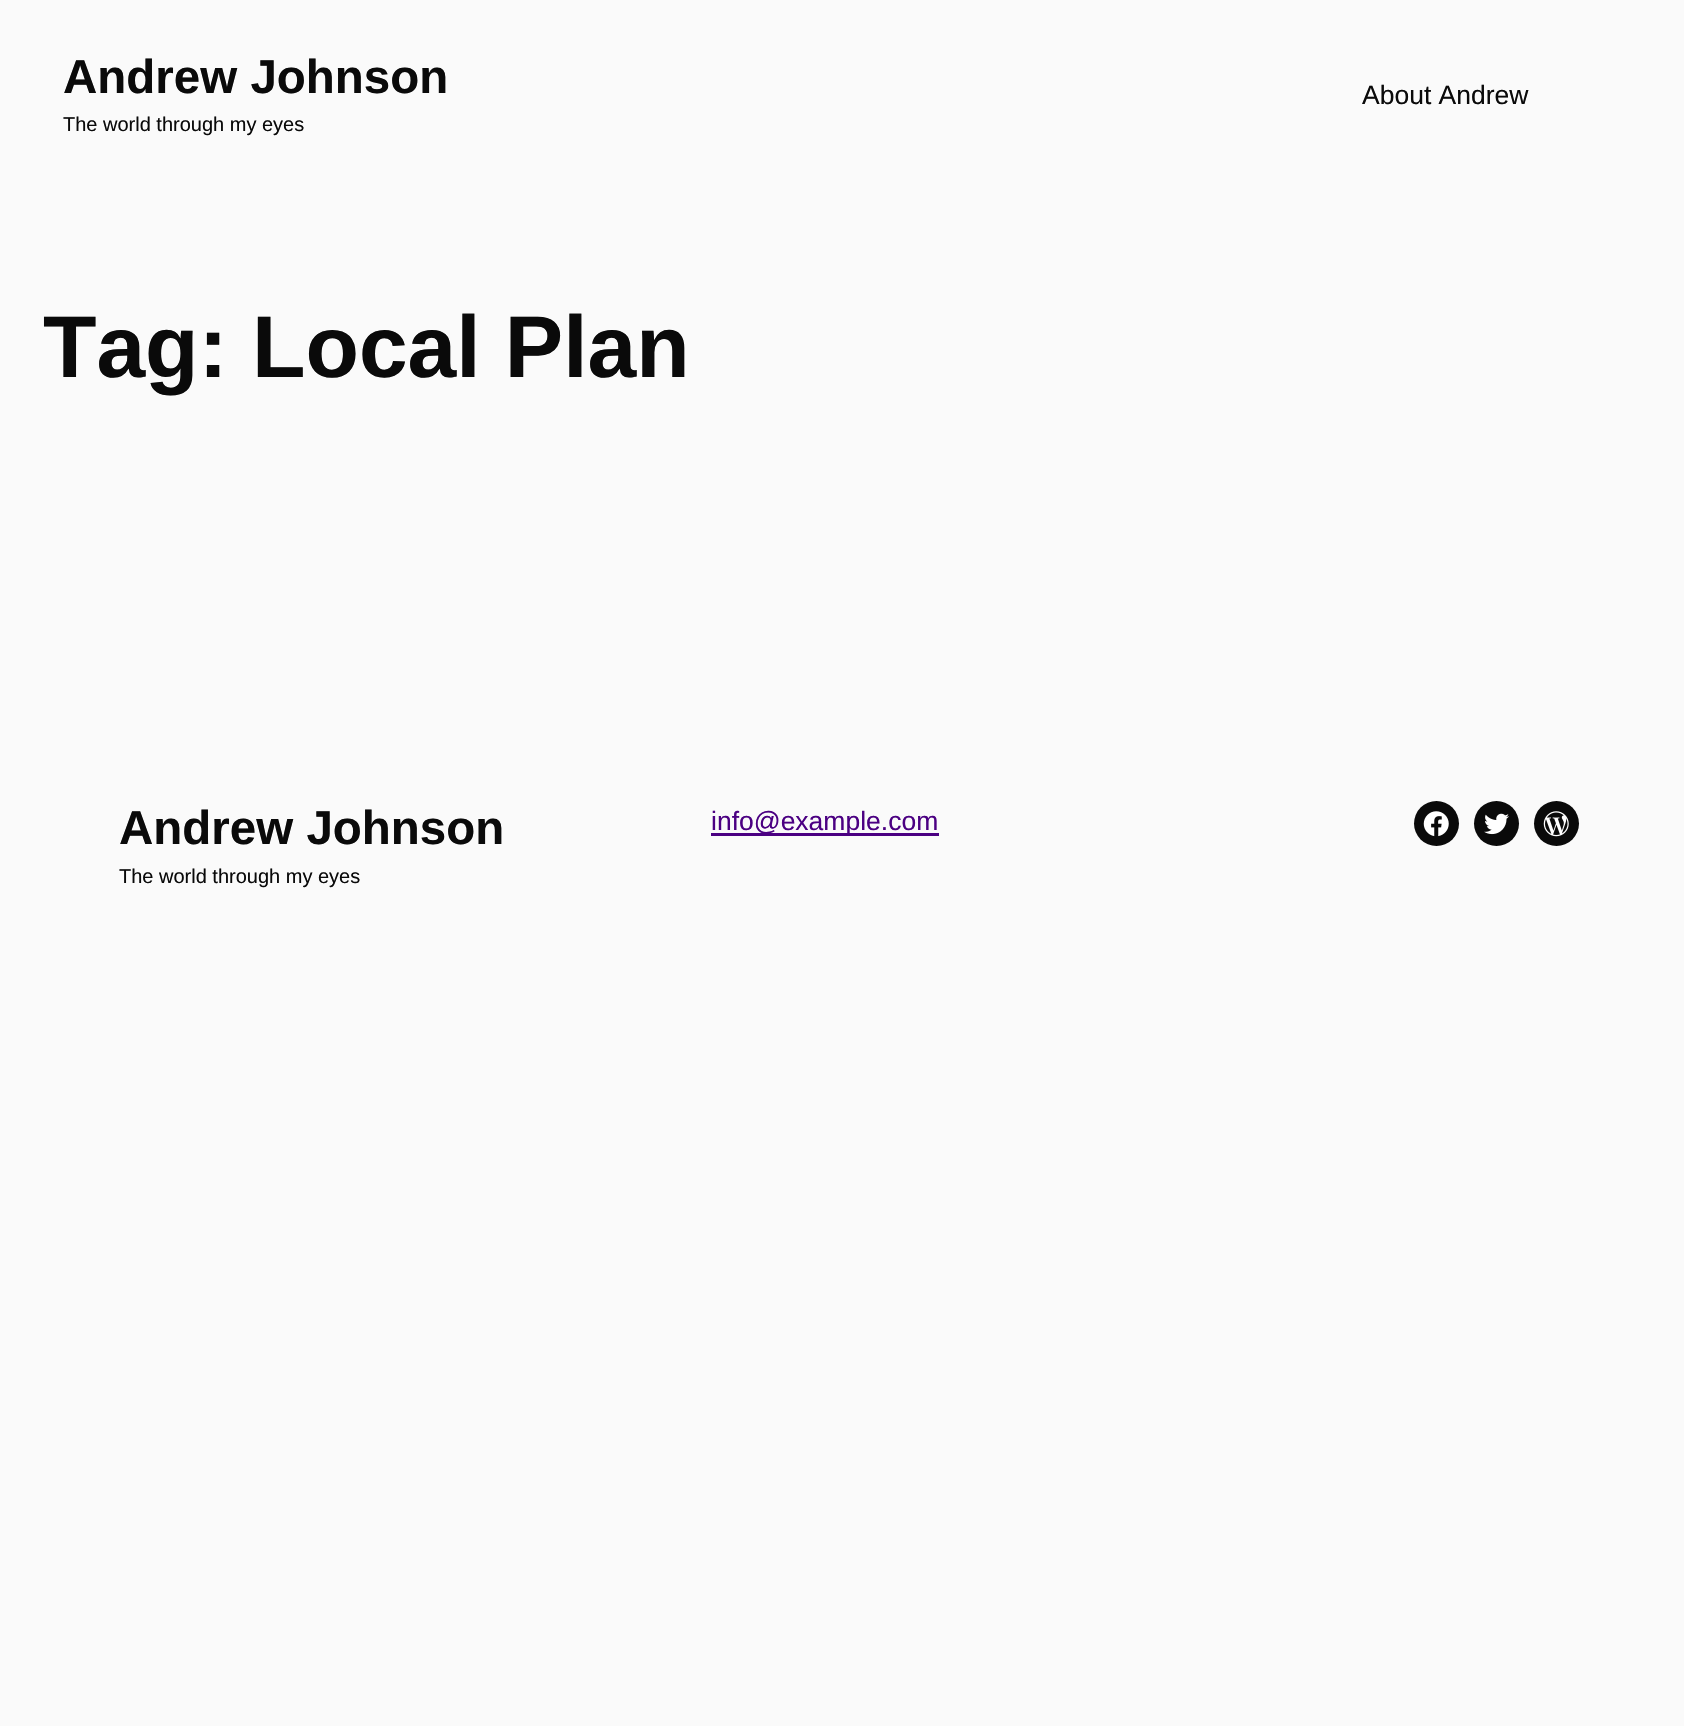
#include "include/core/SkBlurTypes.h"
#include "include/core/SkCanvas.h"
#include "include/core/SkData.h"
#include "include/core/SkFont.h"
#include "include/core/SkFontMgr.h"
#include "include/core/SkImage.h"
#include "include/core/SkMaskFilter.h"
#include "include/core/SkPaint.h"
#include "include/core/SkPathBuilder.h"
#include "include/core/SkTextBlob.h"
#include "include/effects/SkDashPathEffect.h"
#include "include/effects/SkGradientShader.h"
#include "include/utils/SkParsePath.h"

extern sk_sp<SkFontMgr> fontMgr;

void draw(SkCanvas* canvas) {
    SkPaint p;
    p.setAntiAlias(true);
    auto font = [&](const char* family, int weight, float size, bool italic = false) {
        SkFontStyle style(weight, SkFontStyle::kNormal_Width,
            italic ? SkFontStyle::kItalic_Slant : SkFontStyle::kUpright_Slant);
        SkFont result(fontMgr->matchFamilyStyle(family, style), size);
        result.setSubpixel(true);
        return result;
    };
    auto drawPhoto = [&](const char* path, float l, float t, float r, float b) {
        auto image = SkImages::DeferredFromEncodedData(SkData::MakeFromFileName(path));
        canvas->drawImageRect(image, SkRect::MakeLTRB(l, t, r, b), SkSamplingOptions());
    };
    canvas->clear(0xFFFAFAFA);
    auto font1 = font("Liberation Sans", 700, 47.5f);
    p.setColor(0xFF0A0A0A);
    canvas->drawString("Andrew Johnson", 63, 93, font1, p);
    auto font2 = font("Liberation Sans", 400, 20);
    canvas->drawString("The world through my eyes", 63, 131, font2, p);
    auto font3 = font("Liberation Sans", 400, 26.5f);
    canvas->drawString("About Andrew", 1362, 104, font3, p);
    auto font4 = font("Liberation Sans", 700, 87.5f);
    canvas->drawString("Tag: Local Plan", 43, 377, font4, p);
    canvas->drawString("Andrew Johnson", 119, 844, font1, p);
    canvas->drawString("The world through my eyes", 119, 883, font2, p);
    p.setColor(0xFF4B0082);
    canvas->drawRect(SkRect::MakeLTRB(711, 833, 939, 836), p);
    canvas->drawString("info@example.com", 711, 830, font3, p);
    p.setColor(0xFF0A0A0A);
    canvas->drawCircle(1436.5f, 823.5f, 22.5f, p);
    drawPhoto("media/1.png", 1423, 811, 1449, 837);
    canvas->drawCircle(1496.5f, 823.5f, 22.5f, p);
    drawPhoto("media/2.png", 1484, 813, 1509, 835);
    canvas->drawCircle(1556.5f, 823.5f, 22.5f, p);
    drawPhoto("media/3.png", 1543, 811, 1569, 837);
}
